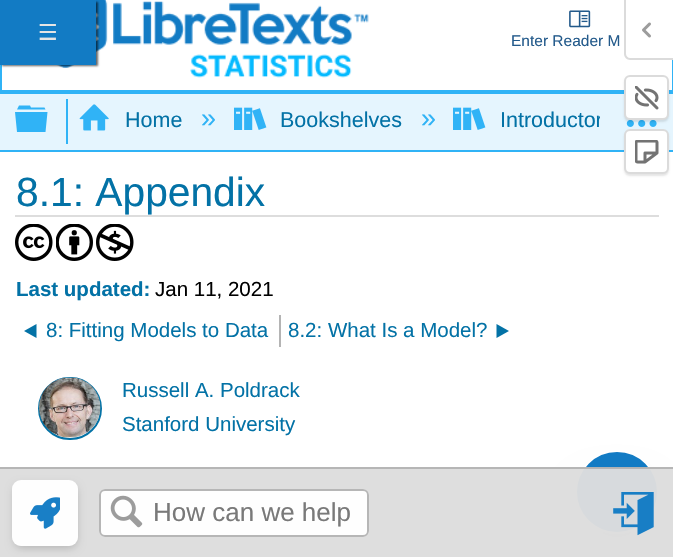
#include "include/core/SkBlurTypes.h"
#include "include/core/SkCanvas.h"
#include "include/core/SkData.h"
#include "include/core/SkFont.h"
#include "include/core/SkFontMgr.h"
#include "include/core/SkImage.h"
#include "include/core/SkMaskFilter.h"
#include "include/core/SkPaint.h"
#include "include/core/SkPathBuilder.h"
#include "include/core/SkTextBlob.h"
#include "include/effects/SkDashPathEffect.h"
#include "include/effects/SkGradientShader.h"
#include "include/utils/SkParsePath.h"

extern sk_sp<SkFontMgr> fontMgr;

void draw(SkCanvas* canvas) {
    SkPaint p;
    p.setAntiAlias(true);
    auto font = [&](const char* family, int weight, float size, bool italic = false) {
        SkFontStyle style(weight, SkFontStyle::kNormal_Width,
            italic ? SkFontStyle::kItalic_Slant : SkFontStyle::kUpright_Slant);
        SkFont result(fontMgr->matchFamilyStyle(family, style), size);
        result.setSubpixel(true);
        return result;
    };
    auto drawTracked = [&](const char* s, float x, float y, const SkFont& font, const SkPaint& ink, float letter, float word) {
        std::vector<SkGlyphID> glyphs(font.countText(s, strlen(s), SkTextEncoding::kUTF8));
        std::vector<float> xs(glyphs.size());
        font.textToGlyphs(s, strlen(s), SkTextEncoding::kUTF8, glyphs);
        font.getXPos(glyphs, xs, x);
        float extra = 0;
        for (size_t i = 0; i < glyphs.size(); i++) {
            xs[i] += extra;
            extra += letter + word * (glyphs[i] == font.unicharToGlyph(' '));
        }
        canvas->drawTextBlob(SkTextBlob::MakeFromPosHGlyphs(glyphs, xs, y, font), 0, 0, ink);
    };
    auto drawPhoto = [&](const char* path, float l, float t, float r, float b) {
        auto image = SkImages::DeferredFromEncodedData(SkData::MakeFromFileName(path));
        canvas->drawImageRect(image, SkRect::MakeLTRB(l, t, r, b), SkSamplingOptions());
    };
    canvas->clear(0xFFFFFFFF);
    p.setStyle(SkPaint::kStroke_Style);
    p.setStrokeWidth(2);
    p.setColor(0xFF30B3F6);
    canvas->drawRect(SkRect::MakeLTRB(1, -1, 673, 91), p);
    drawPhoto("media/4.png", 56, 0, 369, 78);
    p.setStyle(SkPaint::kFill_Style);
    p.setColor(0x99000000);
    p.setMaskFilter(SkMaskFilter::MakeBlur(kNormal_SkBlurStyle, 1));
    canvas->drawRect(SkRect::MakeLTRB(2, 2, 98, 66), p);
    p.setMaskFilter(nullptr);
    p.setColor(0xFF127BC4);
    canvas->drawRect(SkRect::MakeLTRB(0, 0, 96, 65), p);
    auto font1 = font("DejaVu Sans", 400, 22);
    p.setColor(0xFFE5E5E5);
    drawTracked("☰", 38, 40, font1, p, 1, 0);
    p.setColor(0xFFFFFFFF);
    canvas->drawPath(SkPathBuilder().moveTo(626, 0).lineTo(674, 0).lineTo(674, 59).lineTo(631, 59).cubicTo(628, 59, 626, 57, 626, 54).close().detach(), p);
    p.setColor(0xFFDBDBDB);
    canvas->drawPath(SkPathBuilder(SkPathFillType::kEvenOdd).moveTo(624, 0).lineTo(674, 0).lineTo(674, 60).lineTo(630, 60).cubicTo(627, 60, 624, 57, 624, 54).close().moveTo(626, 0).lineTo(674, 0).lineTo(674, 58).lineTo(630, 58).cubicTo(628, 58, 626, 56, 626, 54).close().detach(), p);
    drawPhoto("media/1.png", 642, 22, 651, 38);
    p.setColor(0xFFE5F5FE);
    canvas->drawRect(SkRect::MakeLTRB(0, 94, 673, 150), p);
    p.setColor(0xFF30B3F6);
    canvas->drawRect(SkRect::MakeLTRB(0, 92, 673, 94), p);
    drawPhoto("media/8.png", 626, 120, 657, 127);
    p.setColor(0x1A000000);
    p.setMaskFilter(SkMaskFilter::MakeBlur(kNormal_SkBlurStyle, 1));
    canvas->drawRoundRect(SkRect::MakeLTRB(624, 77, 669, 122), 6, 6, p);
    p.setMaskFilter(nullptr);
    p.setColor(0xFFFFFFFF);
    canvas->drawRoundRect(SkRect::MakeLTRB(625, 76, 668, 119), 5, 5, p);
    p.setStyle(SkPaint::kStroke_Style);
    p.setColor(0xFFDBDBDB);
    canvas->drawRoundRect(SkRect::MakeLTRB(625, 76, 668, 119), 5, 5, p);
    drawPhoto("media/2.png", 635, 86, 659, 110);
    p.setStyle(SkPaint::kFill_Style);
    p.setColor(0xFF30B3F6);
    canvas->drawRect(SkRect::MakeLTRB(0, 150, 673, 152), p);
    p.setColor(0x1A000000);
    p.setMaskFilter(SkMaskFilter::MakeBlur(kNormal_SkBlurStyle, 1));
    canvas->drawRoundRect(SkRect::MakeLTRB(624, 131, 669, 176), 6, 6, p);
    p.setMaskFilter(nullptr);
    p.setColor(0xFFFFFFFF);
    canvas->drawRoundRect(SkRect::MakeLTRB(625, 130, 668, 173), 5, 5, p);
    p.setStyle(SkPaint::kStroke_Style);
    p.setColor(0xFFDBDBDB);
    canvas->drawRoundRect(SkRect::MakeLTRB(625, 130, 668, 173), 5, 5, p);
    drawPhoto("media/3.png", 635, 140, 659, 164);
    drawPhoto("media/5.png", 569, 10, 591, 28);
    auto font2 = font("Liberation Sans", 400, 15.5f);
    p.setStyle(SkPaint::kFill_Style);
    p.setColor(0xFF235A8B);
    canvas->drawString("Enter Reader M", 511, 46, font2, p);
    p.setColor(0xFF30B3F6);
    canvas->drawPath(SkPathBuilder().moveTo(15, 112).lineTo(47.5f, 112).lineTo(45.5f, 132).lineTo(17, 132).close().moveTo(44.5f, 107.5f).lineTo(45.5f, 109.5f).lineTo(17, 109.5f).lineTo(19, 105.5f).lineTo(30, 105.5f).lineTo(31, 107.5f).close().detach(), p);
    canvas->drawRect(SkRect::MakeLTRB(66, 99, 68, 144), p);
    drawPhoto("media/6.png", 79, 104, 109, 131);
    auto font3 = font("Liberation Sans", 400, 21.5f);
    p.setColor(0xFF0372A6);
    canvas->drawString("Home", 125, 127, font3, p);
    auto font4 = font("Liberation Sans", 400, 27);
    p.setColor(0xFF30B3F6);
    canvas->drawString("»", 201, 127, font4, p);
    drawPhoto("media/7.png", 234, 107, 267, 130);
    p.setColor(0xFF0372A6);
    canvas->drawString("Bookshelves", 280, 127, font3, p);
    p.setColor(0xFF30B3F6);
    canvas->drawString("»", 421, 127, font4, p);
    drawPhoto("media/7.png", 453, 107, 486, 130);
    canvas->save();
    canvas->clipRect(SkRect::MakeLTRB(68, 99, 600, 144));
    p.setColor(0xFF0372A6);
    canvas->drawString("Introductor", 500, 127, font3, p);
    canvas->restore();
    p.setColor(0x1A000000);
    p.setMaskFilter(SkMaskFilter::MakeBlur(kNormal_SkBlurStyle, 7.5f));
    canvas->drawRoundRect(SkRect::MakeLTRB(584, 471, 650, 537), 33, 33, p);
    p.setMaskFilter(nullptr);
    p.setMaskFilter(SkMaskFilter::MakeBlur(kNormal_SkBlurStyle, 19));
    canvas->drawRoundRect(SkRect::MakeLTRB(582, 488, 651, 557), 34.5f, 34.5f, p);
    p.setMaskFilter(nullptr);
    p.setColor(0xFF127BC4);
    canvas->drawCircle(617, 492, 41, p);
    p.setStyle(SkPaint::kStroke_Style);
    p.setColor(0xFFFFFFFF);
    canvas->drawCircle(617, 492, 41, p);
    p.setStyle(SkPaint::kFill_Style);
    p.setColor(0xF7DDDDDD);
    canvas->drawRect(SkRect::MakeLTRB(0, 468, 673, 557), p);
    p.setColor(0xF7B4B4B4);
    canvas->drawRect(SkRect::MakeLTRB(0, 467, 673, 469), p);
    canvas->save();
    canvas->clipPath(SkPathBuilder(SkPathFillType::kEvenOdd).moveTo(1, 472).lineTo(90, 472).lineTo(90, 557).lineTo(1, 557).close().moveTo(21, 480).lineTo(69, 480).cubicTo(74, 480, 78, 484, 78, 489).lineTo(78, 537).cubicTo(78, 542, 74, 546, 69, 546).lineTo(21, 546).cubicTo(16, 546, 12, 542, 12, 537).lineTo(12, 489).cubicTo(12, 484, 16, 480, 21, 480).close().detach(), true);
    p.setColor(0x30000000);
    p.setMaskFilter(SkMaskFilter::MakeBlur(kNormal_SkBlurStyle, 4));
    canvas->drawRoundRect(SkRect::MakeLTRB(14, 485, 77, 548), 8, 8, p);
    p.setMaskFilter(nullptr);
    canvas->restore();
    p.setColor(0xF7FFFFFF);
    canvas->drawRoundRect(SkRect::MakeLTRB(12, 480, 78, 546), 9, 9, p);
    drawPhoto("media/9.png", 30, 497, 60, 529);
    canvas->drawRoundRect(SkRect::MakeLTRB(99, 489, 369, 537), 6, 6, p);
    p.setStyle(SkPaint::kStroke_Style);
    p.setColor(0xF7B4B4B4);
    canvas->drawRoundRect(SkRect::MakeLTRB(100, 490, 368, 536), 5, 5, p);
    drawPhoto("media/10.png", 110, 495, 143, 528);
    auto font5 = font("Liberation Sans", 400, 26);
    p.setStyle(SkPaint::kFill_Style);
    p.setColor(0xFF797979);
    canvas->drawString("How can we help", 153, 521, font5, p);
    drawPhoto("media/11.png", 613, 492, 654, 536);
    p.setColor(0xFFDDDDDD);
    canvas->drawRect(SkRect::MakeLTRB(15, 215, 659, 217), p);
    auto font6 = font("Liberation Sans", 400, 40.75f);
    p.setColor(0xFF0372A6);
    canvas->drawString("8.1: Appendix", 16, 206, font6, p);
    drawPhoto("media/12.png", 15, 224, 53, 261);
    drawPhoto("media/13.png", 56, 224, 93, 261);
    drawPhoto("media/14.png", 96, 224, 134, 261);
    auto font7 = font("Liberation Sans", 700, 20.5f);
    canvas->drawString("Last updated:", 16, 296, font7, p);
    auto font8 = font("Liberation Sans", 400, 20.5f);
    p.setColor(0xFF000000);
    canvas->drawString("Jan 11, 2021", 155, 296, font8, p);
    p.setColor(0xFFB4B4B4);
    canvas->drawRect(SkRect::MakeLTRB(279, 315, 281, 347), p);
    p.setColor(0xFF0372A6);
    canvas->drawPath(SkPathBuilder().moveTo(36.5f, 324).lineTo(36.5f, 338).lineTo(24, 331).close().detach(), p);
    canvas->drawString("8: Fitting Models to Data", 46, 337, font8, p);
    canvas->drawString("8.2: What Is a Model?", 288, 337, font8, p);
    canvas->drawPath(SkPathBuilder().moveTo(496.5f, 324).lineTo(496.5f, 338).lineTo(509, 331).close().detach(), p);
    p.setStyle(SkPaint::kStroke_Style);
    canvas->drawRoundRect(SkRect::MakeLTRB(39, 378, 101, 439), 30.5f, 30.5f, p);
    drawPhoto("media/15.png", 39, 377, 101, 438);
    p.setStyle(SkPaint::kFill_Style);
    canvas->drawString("Russell A. Poldrack", 122, 397, font8, p);
    canvas->drawString("Stanford University", 122, 431, font8, p);
}
